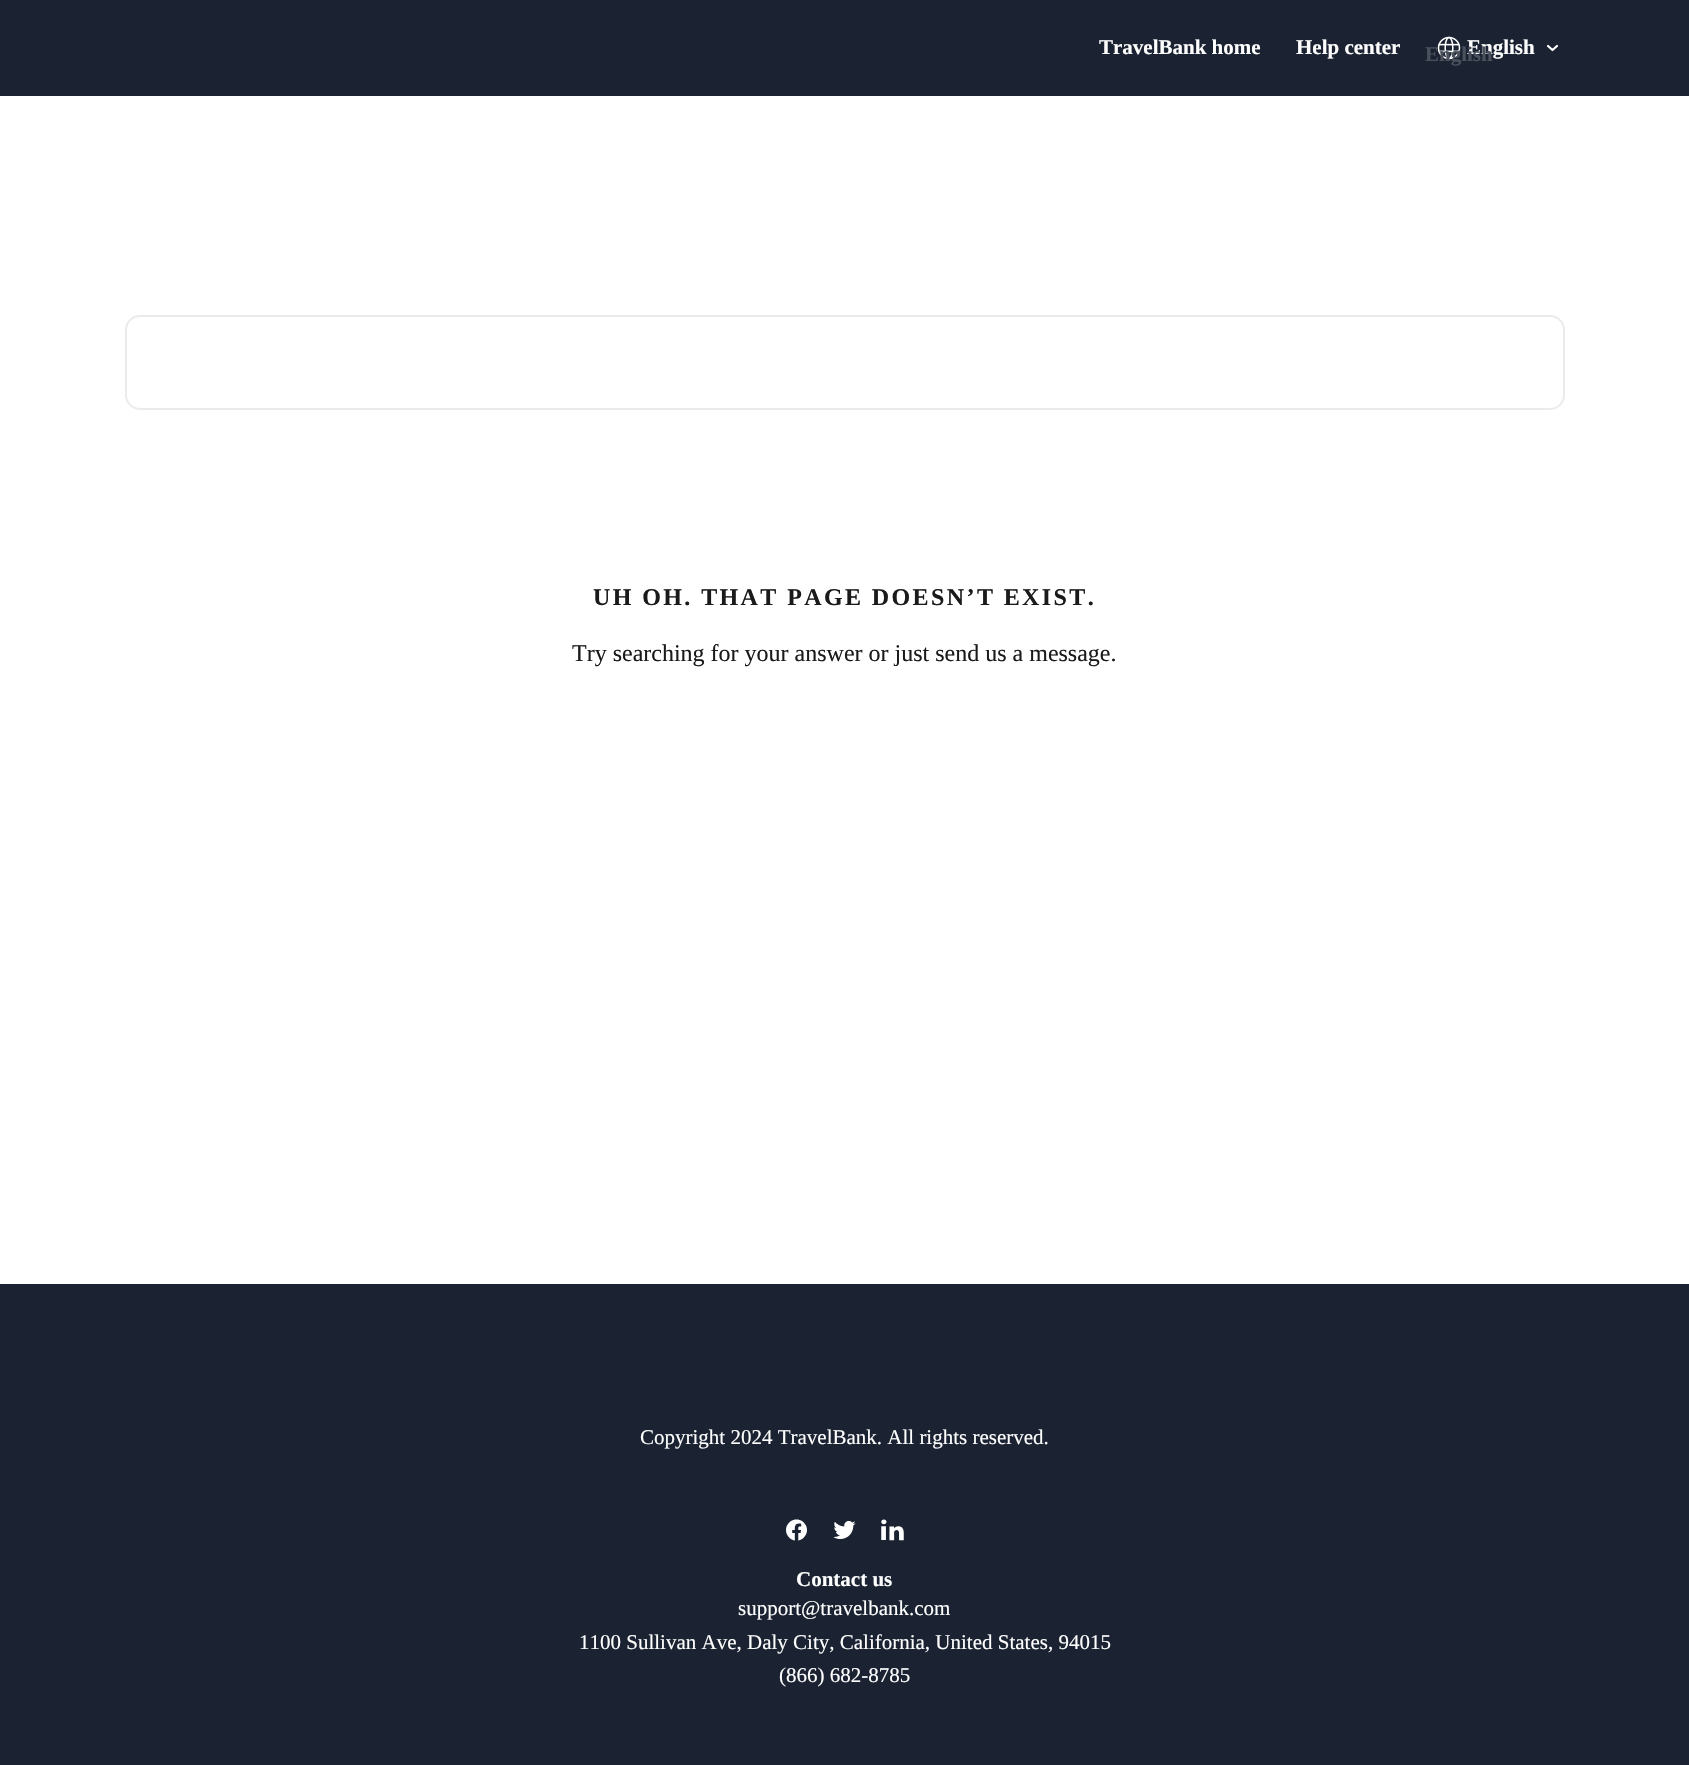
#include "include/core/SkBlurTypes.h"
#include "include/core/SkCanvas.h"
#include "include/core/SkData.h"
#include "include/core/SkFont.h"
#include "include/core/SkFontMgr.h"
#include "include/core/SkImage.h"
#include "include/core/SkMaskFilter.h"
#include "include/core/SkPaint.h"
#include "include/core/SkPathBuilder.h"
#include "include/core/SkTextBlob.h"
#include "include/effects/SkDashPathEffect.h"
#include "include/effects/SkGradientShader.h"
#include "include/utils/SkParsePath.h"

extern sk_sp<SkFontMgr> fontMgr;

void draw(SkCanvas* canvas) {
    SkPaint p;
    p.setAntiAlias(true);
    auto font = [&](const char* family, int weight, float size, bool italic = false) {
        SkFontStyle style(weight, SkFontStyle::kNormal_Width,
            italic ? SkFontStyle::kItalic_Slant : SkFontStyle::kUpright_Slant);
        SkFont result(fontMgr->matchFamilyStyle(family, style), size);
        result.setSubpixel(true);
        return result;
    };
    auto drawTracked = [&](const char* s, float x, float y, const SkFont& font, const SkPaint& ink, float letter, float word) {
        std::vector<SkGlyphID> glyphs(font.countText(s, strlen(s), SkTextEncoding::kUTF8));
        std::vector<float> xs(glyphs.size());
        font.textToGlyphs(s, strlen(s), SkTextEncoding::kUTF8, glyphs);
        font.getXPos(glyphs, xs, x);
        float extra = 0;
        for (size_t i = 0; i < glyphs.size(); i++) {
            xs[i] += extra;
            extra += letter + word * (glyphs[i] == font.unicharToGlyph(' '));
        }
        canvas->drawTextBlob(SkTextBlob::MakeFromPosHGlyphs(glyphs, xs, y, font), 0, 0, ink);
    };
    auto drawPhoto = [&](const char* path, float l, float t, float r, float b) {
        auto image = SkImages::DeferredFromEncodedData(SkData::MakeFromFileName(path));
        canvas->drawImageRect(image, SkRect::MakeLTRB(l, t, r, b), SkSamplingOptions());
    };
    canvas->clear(0xFFFFFFFF);
    p.setColor(0xFF1B2332);
    canvas->drawRect(SkRect::MakeLTRB(0, 0, 1689, 96), p);
    auto font1 = font("Liberation Serif", 700, 21);
    p.setColor(0xFFFFFFFF);
    canvas->drawString("TravelBank home", 1099, 54, font1, p);
    canvas->drawString("Help center", 1296, 54, font1, p);
    drawPhoto("media/1.png", 1437, 36, 1461, 60);
    canvas->drawString("English", 1467, 54, font1, p);
    p.setColor(0xFF4A505C);
    canvas->drawString("English", 1425, 61, font1, p);
    p.setStyle(SkPaint::kStroke_Style);
    p.setStrokeWidth(2.2f);
    p.setStrokeCap(SkPaint::kRound_Cap);
    p.setStrokeJoin(SkPaint::kRound_Join);
    p.setColor(0xFFFFFFFF);
    canvas->drawPath(SkPathBuilder().moveTo(1548, 46).lineTo(1552.5f, 50).lineTo(1557, 46).detach(), p);
    p.setStrokeWidth(2);
    p.setStrokeCap(SkPaint::kButt_Cap);
    p.setStrokeJoin(SkPaint::kMiter_Join);
    p.setColor(0x14000000);
    canvas->drawRoundRect(SkRect::MakeLTRB(126, 316, 1564, 409), 14, 14, p);
    auto font2 = font("Liberation Serif", 700, 24);
    p.setStyle(SkPaint::kFill_Style);
    p.setColor(0xFF1A1A1A);
    drawTracked("UH OH. THAT PAGE DOESN’T EXIST.", 593, 605, font2, p, 2.4f, 0);
    auto font3 = font("Liberation Serif", 400, 24);
    canvas->drawString("Try searching for your answer or just send us a message.", 572, 661, font3, p);
    p.setColor(0xFF1B2332);
    canvas->drawRect(SkRect::MakeLTRB(0, 1284, 1689, 1765), p);
    auto font4 = font("Liberation Serif", 400, 21);
    p.setColor(0xFFFFFFFF);
    canvas->drawString("Copyright 2024 TravelBank. All rights reserved.", 640, 1444, font4, p);
    drawPhoto("media/2.png", 786, 1519, 807, 1541);
    drawPhoto("media/3.png", 833, 1521, 856, 1539);
    drawPhoto("media/4.png", 881, 1519, 904, 1541);
    canvas->drawString("Contact us", 796, 1586, font1, p);
    {
        const struct { const char* s; float x, y; } items[] = {
            {"support@travelbank.com", 738, 1615},
            {"1100 Sullivan Ave, Daly City, California, United States, 94015", 579, 1649},
            {"(866) 682-8785", 779, 1682},
        };
        for (auto [s, x, y] : items) {
            canvas->drawString(s, x, y, font4, p);
        }
    }
}
